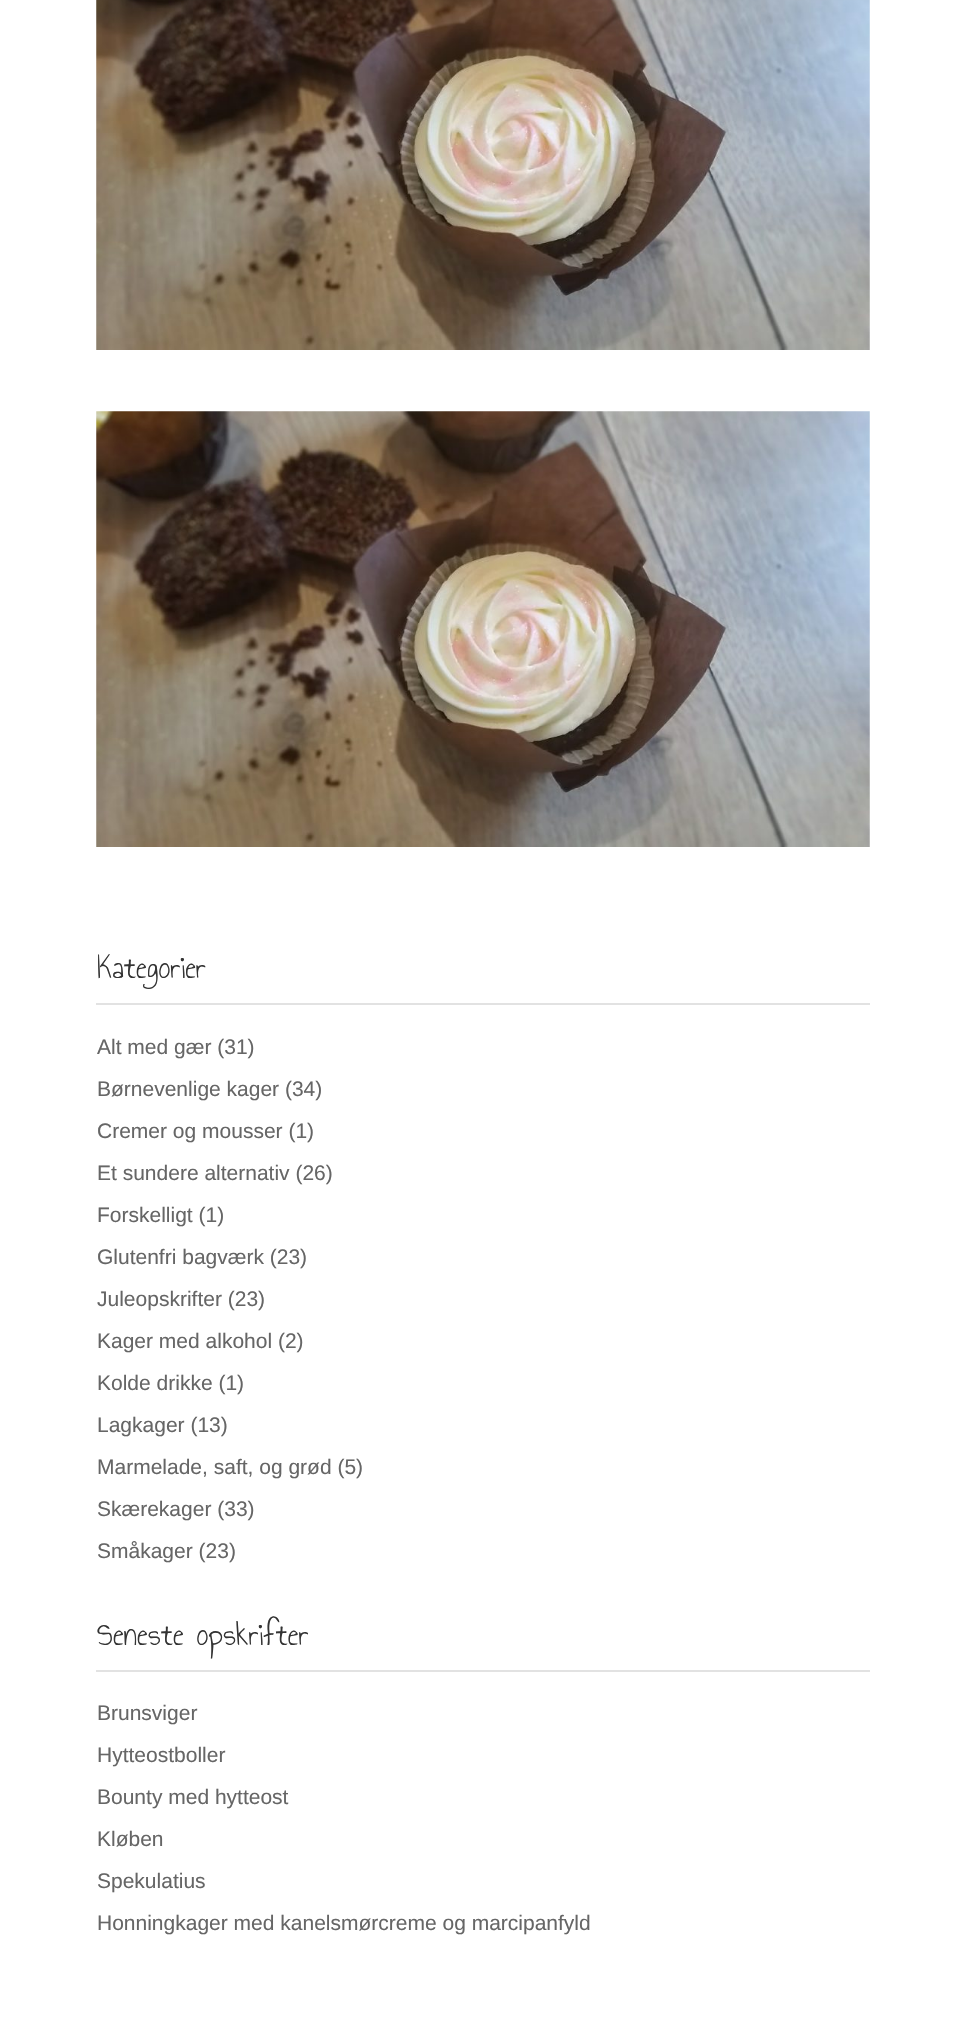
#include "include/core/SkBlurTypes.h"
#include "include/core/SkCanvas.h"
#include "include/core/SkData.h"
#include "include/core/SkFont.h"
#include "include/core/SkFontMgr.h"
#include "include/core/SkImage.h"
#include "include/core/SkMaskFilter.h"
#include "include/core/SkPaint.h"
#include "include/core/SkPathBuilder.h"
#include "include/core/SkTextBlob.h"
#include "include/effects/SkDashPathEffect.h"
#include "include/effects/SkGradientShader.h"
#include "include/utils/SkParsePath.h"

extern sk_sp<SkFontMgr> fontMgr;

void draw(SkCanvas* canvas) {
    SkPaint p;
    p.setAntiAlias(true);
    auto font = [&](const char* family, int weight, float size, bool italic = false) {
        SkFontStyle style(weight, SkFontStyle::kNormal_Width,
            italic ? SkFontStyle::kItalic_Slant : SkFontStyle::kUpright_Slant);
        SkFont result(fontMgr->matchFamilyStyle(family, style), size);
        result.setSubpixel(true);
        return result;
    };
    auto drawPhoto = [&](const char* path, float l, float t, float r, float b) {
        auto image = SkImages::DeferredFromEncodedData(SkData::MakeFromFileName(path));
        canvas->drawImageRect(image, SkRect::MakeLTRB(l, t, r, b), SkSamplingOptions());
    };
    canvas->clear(0xFFFFFFFF);
    drawPhoto("media/1.png", 96, 0, 870, 350);
    drawPhoto("media/2.png", 96, 411, 870, 847);
    p.setColor(0xFFE2E2E2);
    canvas->drawRect(SkRect::MakeLTRB(96, 1003, 870, 1005), p);
    auto font1 = font("Annie Use Your Telescope", 400, 33.25f);
    p.setColor(0xFF333333);
    canvas->drawString("Kategorier", 97, 978, font1, p);
    auto font2 = font("Liberation Sans", 400, 21);
    p.setColor(0xFF666666);
    {
        const struct { const char* s; float x, y; } items[] = {
            {"Alt med gær (31)", 97, 1054},
            {"Børnevenlige kager (34)", 97, 1096},
            {"Cremer og mousser (1)", 97, 1138},
            {"Et sundere alternativ (26)", 97, 1180},
            {"Forskelligt (1)", 97, 1222},
            {"Glutenfri bagværk (23)", 97, 1264},
            {"Juleopskrifter (23)", 97, 1306},
            {"Kager med alkohol (2)", 97, 1348},
            {"Kolde drikke (1)", 97, 1390},
            {"Lagkager (13)", 97, 1432},
            {"Marmelade, saft, og grød (5)", 97, 1474},
            {"Skærekager (33)", 97, 1516},
            {"Småkager (23)", 97, 1558},
        };
        for (auto [s, x, y] : items) {
            canvas->drawString(s, x, y, font2, p);
        }
    }
    p.setColor(0xFFE2E2E2);
    canvas->drawRect(SkRect::MakeLTRB(96, 1670, 870, 1672), p);
    p.setColor(0xFF333333);
    canvas->drawString("Seneste opskrifter", 97, 1645, font1, p);
    p.setColor(0xFF666666);
    {
        const struct { const char* s; float x, y; } items[] = {
            {"Brunsviger", 97, 1720},
            {"Hytteostboller", 97, 1762},
            {"Bounty med hytteost", 97, 1804},
            {"Kløben", 97, 1846},
            {"Spekulatius", 97, 1888},
            {"Honningkager med kanelsmørcreme og marcipanfyld", 97, 1930},
        };
        for (auto [s, x, y] : items) {
            canvas->drawString(s, x, y, font2, p);
        }
    }
}
